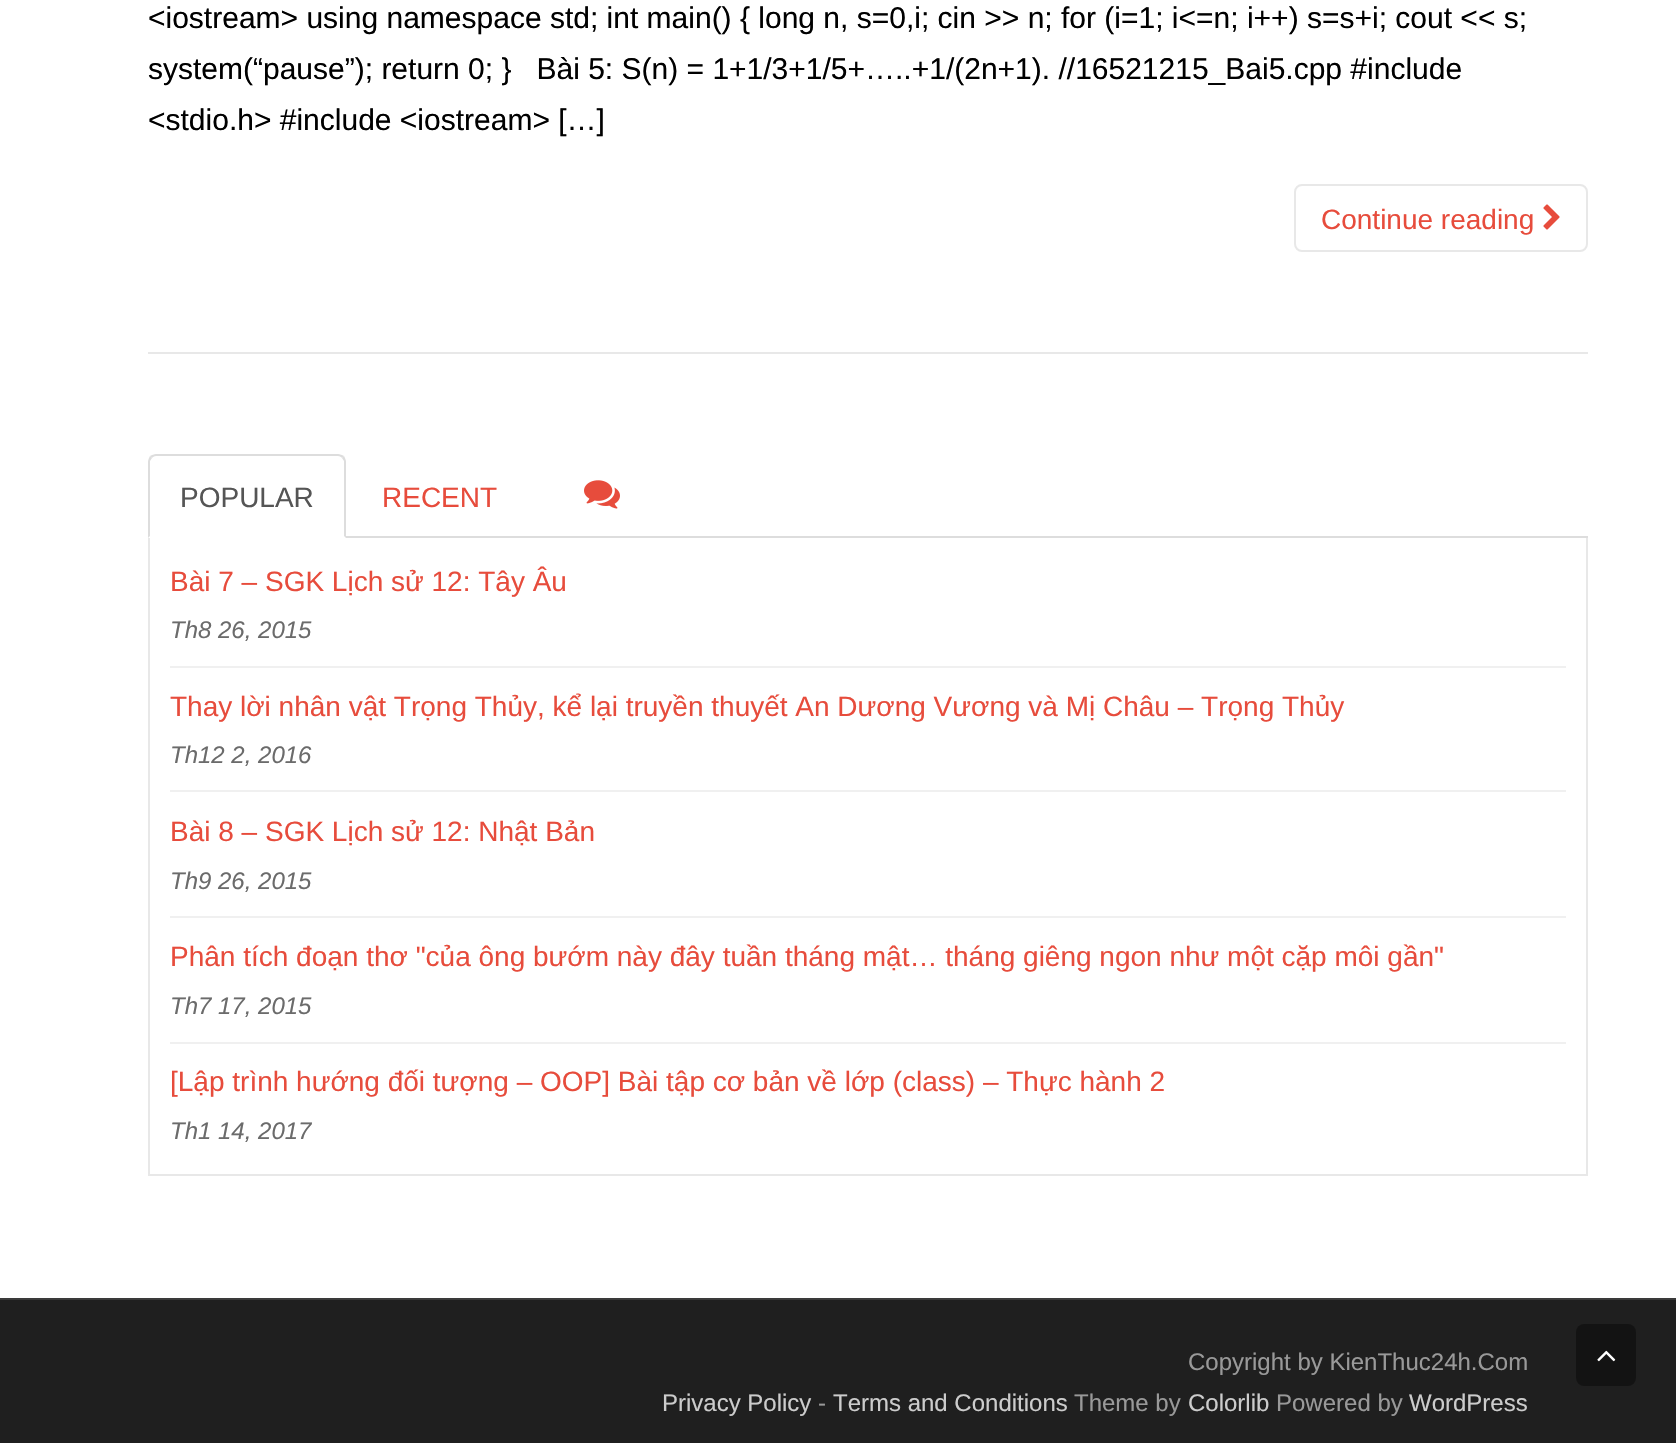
#include "include/core/SkBlurTypes.h"
#include "include/core/SkCanvas.h"
#include "include/core/SkData.h"
#include "include/core/SkFont.h"
#include "include/core/SkFontMgr.h"
#include "include/core/SkImage.h"
#include "include/core/SkMaskFilter.h"
#include "include/core/SkPaint.h"
#include "include/core/SkPathBuilder.h"
#include "include/core/SkTextBlob.h"
#include "include/effects/SkDashPathEffect.h"
#include "include/effects/SkGradientShader.h"
#include "include/utils/SkParsePath.h"

extern sk_sp<SkFontMgr> fontMgr;

void draw(SkCanvas* canvas) {
    SkPaint p;
    p.setAntiAlias(true);
    auto font = [&](const char* family, int weight, float size, bool italic = false) {
        SkFontStyle style(weight, SkFontStyle::kNormal_Width,
            italic ? SkFontStyle::kItalic_Slant : SkFontStyle::kUpright_Slant);
        SkFont result(fontMgr->matchFamilyStyle(family, style), size);
        result.setSubpixel(true);
        return result;
    };
    auto drawPhoto = [&](const char* path, float l, float t, float r, float b) {
        auto image = SkImages::DeferredFromEncodedData(SkData::MakeFromFileName(path));
        canvas->drawImageRect(image, SkRect::MakeLTRB(l, t, r, b), SkSamplingOptions());
    };
    canvas->clear(0xFFFFFFFF);
    auto font1 = font("Liberation Sans", 400, 30);
    p.setColor(0xFF000000);
    {
        const struct { const char* s; float x, y; } items[] = {
            {"<iostream> using namespace std; int main() { long n, s=0,i; cin >> n; for (i=1; i<=n; i++) s=s+i; cout << s;", 148, 28},
            {"system(“pause”); return 0; }   Bài 5: S(n) = 1+1/3+1/5+…..+1/(2n+1). //16521215_Bai5.cpp #include", 148, 79},
            {"<stdio.h> #include <iostream> […]", 148, 130},
        };
        for (auto [s, x, y] : items) {
            canvas->drawString(s, x, y, font1, p);
        }
    }
    p.setStyle(SkPaint::kStroke_Style);
    p.setStrokeWidth(2);
    p.setColor(0xFFE8E8E8);
    canvas->drawRoundRect(SkRect::MakeLTRB(1295, 185, 1587, 251), 7, 7, p);
    auto font2 = font("Liberation Sans", 400, 28);
    p.setStyle(SkPaint::kFill_Style);
    p.setColor(0xFFE74C3C);
    canvas->drawString("Continue reading", 1321, 229, font2, p);
    drawPhoto("media/1.png", 1543, 204, 1560, 230);
    p.setColor(0xFFE8E8E8);
    canvas->drawRect(SkRect::MakeLTRB(148, 352, 1588, 354), p);
    p.setColor(0xFFDDDDDD);
    canvas->drawRect(SkRect::MakeLTRB(346, 536, 1588, 538), p);
    canvas->drawPath(SkPathBuilder().moveTo(156, 454).cubicTo(154, 454, 152, 455, 150, 456).lineTo(152, 458).cubicTo(153, 457, 154, 456, 156, 456).lineTo(338, 456).cubicTo(340, 456, 341, 457, 342, 458).lineTo(344, 456).cubicTo(342, 455, 340, 454, 338, 454).close().detach(), p);
    canvas->drawPath(SkPathBuilder().moveTo(346, 538).lineTo(346, 462).cubicTo(346, 460, 345, 458, 344, 456).lineTo(342, 458).lineTo(344, 461).lineTo(344, 536).close().detach(), p);
    canvas->drawPath(SkPathBuilder().moveTo(148, 538).lineTo(150, 536).lineTo(150, 461).lineTo(152, 458).lineTo(150, 456).cubicTo(149, 458, 148, 460, 148, 462).close().detach(), p);
    p.setColor(0xFF555555);
    canvas->drawString("POPULAR", 180, 507, font2, p);
    p.setColor(0xFFE74C3C);
    canvas->drawString("RECENT", 382, 507, font2, p);
    drawPhoto("media/2.png", 584, 480, 620, 509);
    {
        const struct { float l, t, r, b; SkColor color; } items[] = {
            {1586, 538, 1588, 1176, 0xFFE8E8E8},
            {148, 1174, 1588, 1176, 0xFFE8E8E8},
            {148, 538, 150, 1176, 0xFFE8E8E8},
            {170, 666, 1566, 668, 0xFFF0F0F0},
        };
        for (auto [l, t, r, b, color] : items) {
            p.setColor(color);
            canvas->drawRect(SkRect::MakeLTRB(l, t, r, b), p);
        }
    }
    p.setColor(0xFFE74C3C);
    canvas->drawString("Bài 7 – SGK Lịch sử 12: Tây Âu", 170, 591, font2, p);
    auto font3 = font("Liberation Sans", 400, 24, true);
    p.setColor(0xFF6B6B6B);
    canvas->drawString("Th8 26, 2015", 170, 638, font3, p);
    p.setColor(0xFFF0F0F0);
    canvas->drawRect(SkRect::MakeLTRB(170, 790, 1566, 792), p);
    p.setColor(0xFFE74C3C);
    canvas->drawString("Thay lời nhân vật Trọng Thủy, kể lại truyền thuyết An Dương Vương và Mị Châu – Trọng Thủy", 170, 716, font2, p);
    p.setColor(0xFF6B6B6B);
    canvas->drawString("Th12 2, 2016", 170, 763, font3, p);
    p.setColor(0xFFF0F0F0);
    canvas->drawRect(SkRect::MakeLTRB(170, 916, 1566, 918), p);
    p.setColor(0xFFE74C3C);
    canvas->drawString("Bài 8 – SGK Lịch sử 12: Nhật Bản", 170, 841, font2, p);
    p.setColor(0xFF6B6B6B);
    canvas->drawString("Th9 26, 2015", 170, 889, font3, p);
    p.setColor(0xFFF0F0F0);
    canvas->drawRect(SkRect::MakeLTRB(170, 1042, 1566, 1044), p);
    p.setColor(0xFFE74C3C);
    canvas->drawString("Phân tích đoạn thơ \"của ông bướm này đây tuần tháng mật… tháng giêng ngon như một cặp môi gần\"", 170, 966, font2, p);
    p.setColor(0xFF6B6B6B);
    canvas->drawString("Th7 17, 2015", 170, 1014, font3, p);
    p.setColor(0xFFE74C3C);
    canvas->drawString("[Lập trình hướng đối tượng – OOP] Bài tập cơ bản về lớp (class) – Thực hành 2", 170, 1091, font2, p);
    p.setColor(0xFF6B6B6B);
    canvas->drawString("Th1 14, 2017", 170, 1139, font3, p);
    p.setColor(0xFF1F1F1F);
    canvas->drawRect(SkRect::MakeLTRB(0, 1300, 1676, 1443), p);
    p.setColor(0xFF3A3A3A);
    canvas->drawRect(SkRect::MakeLTRB(0, 1298, 1676, 1300), p);
    auto font4 = font("Liberation Sans", 400, 24);
    p.setColor(0xFF999999);
    canvas->drawString("Copyright by KienThuc24h.Com", 1188, 1370, font4, p);
    p.setColor(0xFFCCCCCC);
    canvas->drawString("Privacy Policy", 662, 1411, font4, p);
    p.setColor(0xFF999999);
    canvas->drawString("-", 818, 1411, font4, p);
    p.setColor(0xFFCCCCCC);
    canvas->drawString("Terms and Conditions", 833, 1411, font4, p);
    p.setColor(0xFF999999);
    canvas->drawString("Theme by", 1074, 1411, font4, p);
    p.setColor(0xFFCCCCCC);
    canvas->drawString("Colorlib", 1188, 1411, font4, p);
    p.setColor(0xFF999999);
    canvas->drawString("Powered by", 1276, 1411, font4, p);
    p.setColor(0xFFCCCCCC);
    canvas->drawString("WordPress", 1409, 1411, font4, p);
    p.setColor(0xFF131313);
    canvas->drawRoundRect(SkRect::MakeLTRB(1576, 1324, 1636, 1386), 8, 8, p);
    drawPhoto("media/3.png", 1597, 1350, 1616, 1362);
}
